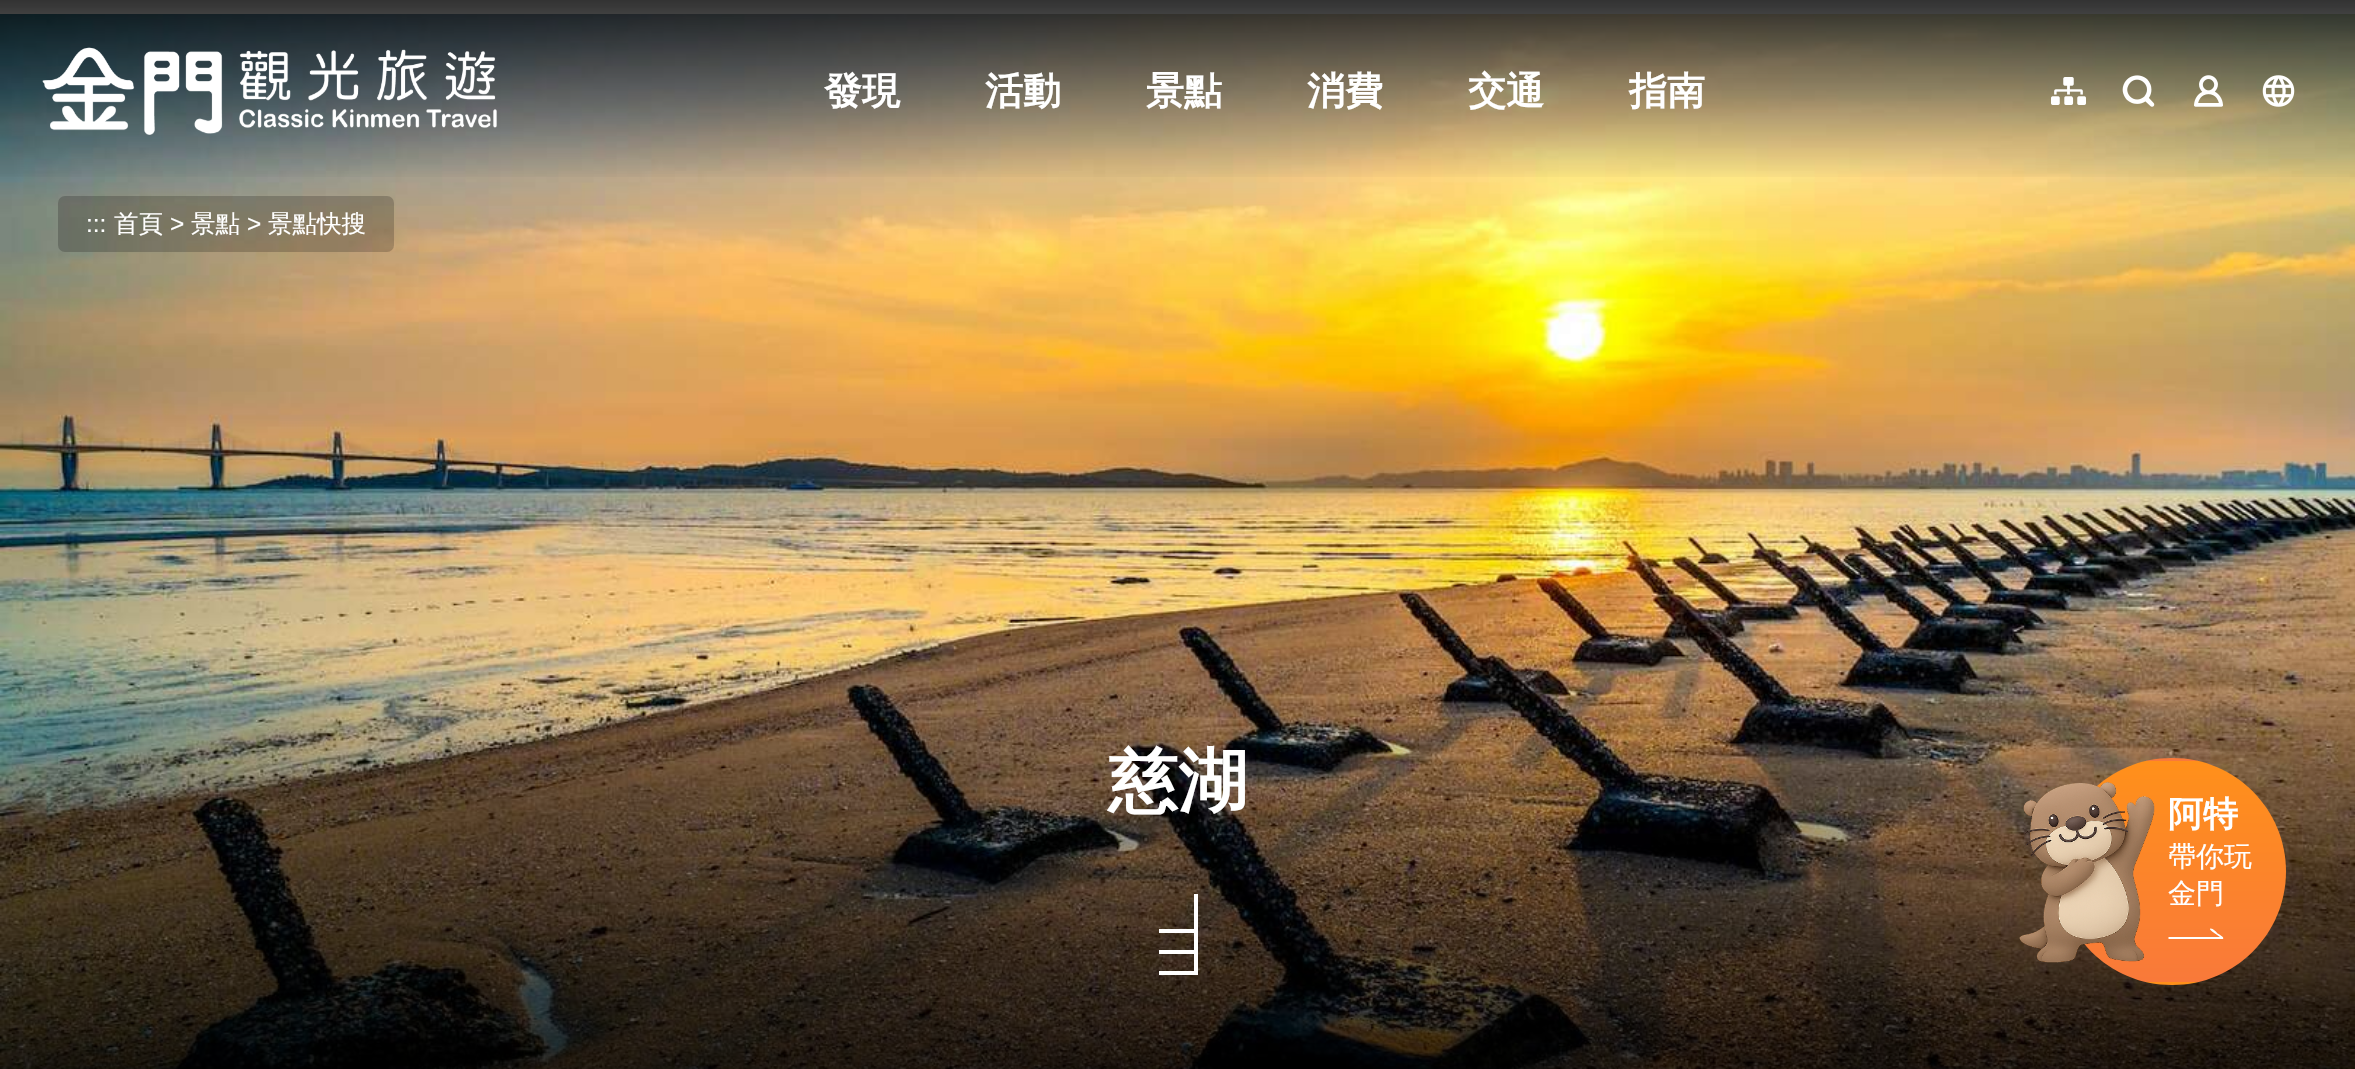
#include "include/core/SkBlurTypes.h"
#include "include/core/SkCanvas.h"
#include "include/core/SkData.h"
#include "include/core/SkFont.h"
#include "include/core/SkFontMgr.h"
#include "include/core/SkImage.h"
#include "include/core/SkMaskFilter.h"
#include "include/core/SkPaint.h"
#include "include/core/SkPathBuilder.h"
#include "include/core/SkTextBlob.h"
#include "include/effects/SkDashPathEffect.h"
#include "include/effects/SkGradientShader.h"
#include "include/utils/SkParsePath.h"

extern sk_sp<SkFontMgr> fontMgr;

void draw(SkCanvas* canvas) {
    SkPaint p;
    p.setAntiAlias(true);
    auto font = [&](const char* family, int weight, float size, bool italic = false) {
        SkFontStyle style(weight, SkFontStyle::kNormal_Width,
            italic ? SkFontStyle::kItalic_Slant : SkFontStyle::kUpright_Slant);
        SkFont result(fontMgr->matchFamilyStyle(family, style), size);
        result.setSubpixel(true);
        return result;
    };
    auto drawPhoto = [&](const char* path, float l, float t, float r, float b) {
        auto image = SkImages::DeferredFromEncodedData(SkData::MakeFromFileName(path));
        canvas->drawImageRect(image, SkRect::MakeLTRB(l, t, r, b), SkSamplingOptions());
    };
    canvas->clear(0xFFF7F7F7);
    drawPhoto("media/6.png", 0, 14, 2355, 1069);
    {
        const SkColor colors[] = {0xCC000000, 0x00000000};
        const float stops[] = {0, 1};
        const SkPoint ends[] = {{1178, 0}, {1178, 182}};
        p.setShader(SkGradientShader::MakeLinear(ends, colors, stops, 2, SkTileMode::kClamp));
        p.setAlpha(255);
    }
    canvas->drawRect(SkRect::MakeLTRB(0, 0, 2355, 177), p);
    drawPhoto("media/1.png", 42, 47, 497, 135);
    auto font1 = font("WenQuanYi Zen Hei", 700, 38);
    p.setShader(nullptr);
    p.setColor(0xFFFFFFFF);
    {
        const struct { const char* s; float x, y; } items[] = {
            {"發現", 824, 104},
            {"活動", 985, 104},
            {"景點", 1146, 104},
            {"消費", 1307, 104},
            {"交通", 1468, 104},
            {"指南", 1629, 104},
        };
        for (auto [s, x, y] : items) {
            canvas->drawString(s, x, y, font1, p);
        }
    }
    drawPhoto("media/2.png", 2051, 77, 2086, 105);
    drawPhoto("media/3.png", 2122, 75, 2155, 107);
    drawPhoto("media/4.png", 2194, 75, 2223, 107);
    drawPhoto("media/5.png", 2262, 75, 2295, 107);
    p.setColor(0x33000000);
    canvas->drawRoundRect(SkRect::MakeLTRB(58, 196, 394, 252), 7, 7, p);
    auto font2 = font("Liberation Sans", 400, 24.5f);
    p.setColor(0xFFFFFFFF);
    canvas->drawString(":::", 86, 232, font2, p);
    auto font3 = font("WenQuanYi Zen Hei", 500, 24.5f);
    canvas->drawString("首頁", 114, 232, font3, p);
    canvas->drawString(">", 170, 232, font2, p);
    canvas->drawString("景點", 191, 232, font3, p);
    canvas->drawString(">", 247, 232, font2, p);
    canvas->drawString("景點快搜", 268, 232, font3, p);
    auto font4 = font("WenQuanYi Zen Hei", 700, 70);
    canvas->drawString("慈湖", 1108, 805, font4, p);
    {
        const struct { float l, t, r, b; SkColor color; } items[] = {
            {1194, 894, 1198, 915, 0xFFFFFFFF},
            {1159, 929, 1197, 933, 0xFFFFFFFF},
            {1194, 915, 1198, 936, 0xFFFFFFFF},
            {1159, 950, 1197, 954, 0xFFFFFFFF},
            {1194, 936, 1198, 975, 0xFFFFFFFF},
            {1159, 971, 1197, 975, 0xFFFFFFFF},
        };
        for (auto [l, t, r, b, color] : items) {
            p.setColor(color);
            canvas->drawRect(SkRect::MakeLTRB(l, t, r, b), p);
        }
    }
    canvas->save();
    canvas->clipPath(SkPathBuilder().moveTo(2171.5f, 758).lineTo(2172.5f, 758).cubicTo(2235, 758, 2286, 809, 2286, 871.5f).cubicTo(2286, 934, 2235, 985, 2172.5f, 985).lineTo(2171.5f, 985).cubicTo(2109, 985, 2058, 934, 2058, 871.5f).cubicTo(2058, 809, 2109, 758, 2171.5f, 758).close().detach(), true);
    {
        const SkColor colors[] = {0xFFFF901A, 0xFFF9793A};
        const float stops[] = {0, 1};
        const SkPoint ends[] = {{2172, 541}, {2172, 761}};
        p.setShader(SkGradientShader::MakeLinear(ends, colors, stops, 2, SkTileMode::kClamp));
        p.setAlpha(255);
    }
    canvas->drawRect(SkRect::MakeLTRB(2146, 758, 2198, 761), p);
    {
        const SkColor colors[] = {0xFFFF901A, 0xFFF9793A};
        const float stops[] = {0, 1};
        const SkPoint ends[] = {{2172, 761}, {2172, 982}};
        p.setShader(SkGradientShader::MakeLinear(ends, colors, stops, 2, SkTileMode::kClamp));
        p.setAlpha(255);
    }
    canvas->drawRect(SkRect::MakeLTRB(2080, 761, 2286, 982), p);
    {
        const SkColor colors[] = {0xFFFF901A, 0xFFF9793A};
        const float stops[] = {0, 1};
        const SkPoint ends[] = {{2172, 982}, {2172, 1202}};
        p.setShader(SkGradientShader::MakeLinear(ends, colors, stops, 2, SkTileMode::kClamp));
        p.setAlpha(255);
    }
    canvas->drawRect(SkRect::MakeLTRB(2146, 982, 2198, 985), p);
    canvas->restore();
    drawPhoto("media/7.png", 2019, 782, 2155, 963);
    auto font5 = font("WenQuanYi Zen Hei", 700, 35);
    p.setShader(nullptr);
    p.setColor(0xFFFFFFFF);
    canvas->drawString("阿特", 2168, 826, font5, p);
    auto font6 = font("WenQuanYi Zen Hei", 500, 28);
    canvas->drawString("帶你玩", 2168, 866, font6, p);
    canvas->drawString("金門", 2168, 903, font6, p);
    canvas->drawPath(SkPathBuilder().moveTo(2210, 929).cubicTo(2211, 927, 2217, 932, 2217, 933).cubicTo(2218, 934, 2225, 937, 2223, 939).lineTo(2169, 939).lineTo(2168, 938).lineTo(2169, 937).lineTo(2220, 937).cubicTo(2219, 936, 2209, 930, 2210, 929).close().detach(), p);
}
